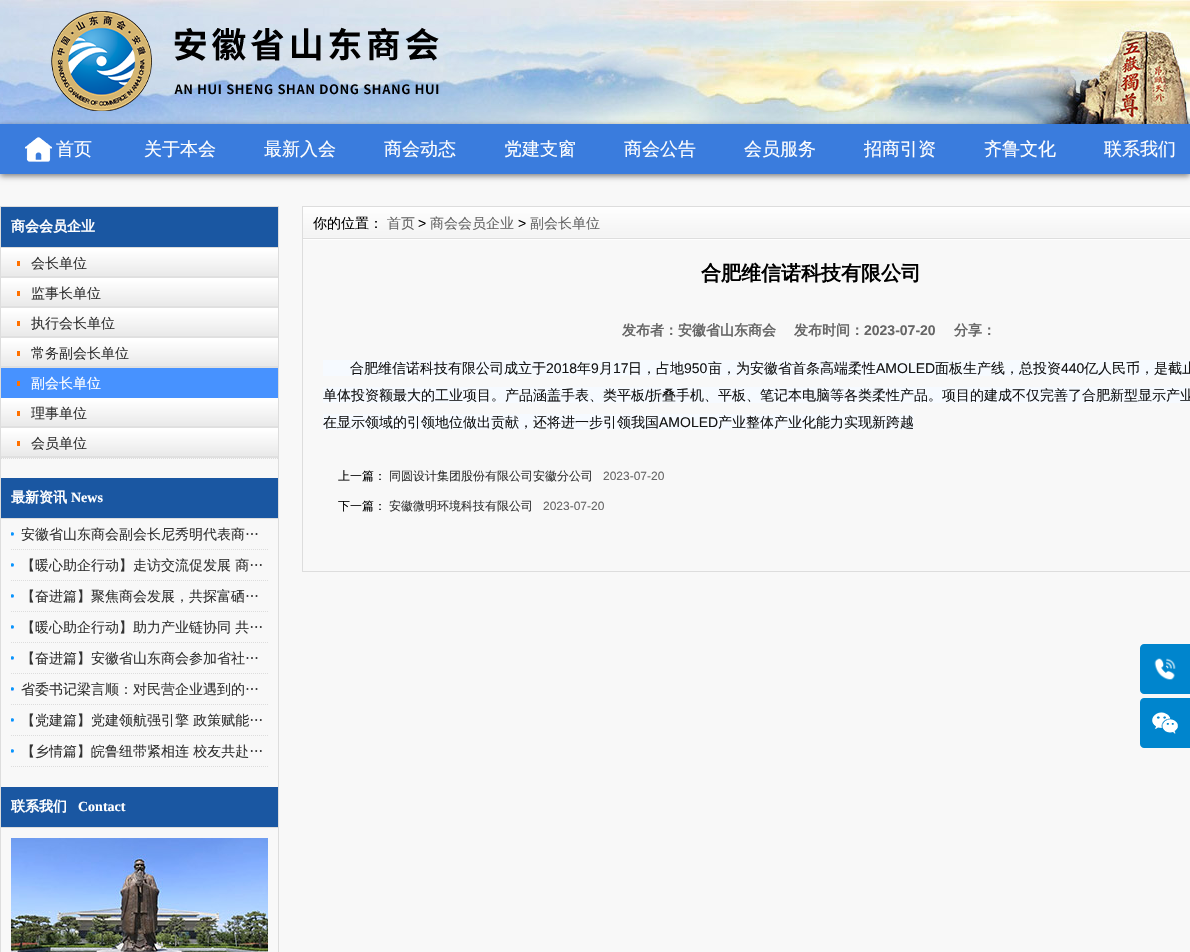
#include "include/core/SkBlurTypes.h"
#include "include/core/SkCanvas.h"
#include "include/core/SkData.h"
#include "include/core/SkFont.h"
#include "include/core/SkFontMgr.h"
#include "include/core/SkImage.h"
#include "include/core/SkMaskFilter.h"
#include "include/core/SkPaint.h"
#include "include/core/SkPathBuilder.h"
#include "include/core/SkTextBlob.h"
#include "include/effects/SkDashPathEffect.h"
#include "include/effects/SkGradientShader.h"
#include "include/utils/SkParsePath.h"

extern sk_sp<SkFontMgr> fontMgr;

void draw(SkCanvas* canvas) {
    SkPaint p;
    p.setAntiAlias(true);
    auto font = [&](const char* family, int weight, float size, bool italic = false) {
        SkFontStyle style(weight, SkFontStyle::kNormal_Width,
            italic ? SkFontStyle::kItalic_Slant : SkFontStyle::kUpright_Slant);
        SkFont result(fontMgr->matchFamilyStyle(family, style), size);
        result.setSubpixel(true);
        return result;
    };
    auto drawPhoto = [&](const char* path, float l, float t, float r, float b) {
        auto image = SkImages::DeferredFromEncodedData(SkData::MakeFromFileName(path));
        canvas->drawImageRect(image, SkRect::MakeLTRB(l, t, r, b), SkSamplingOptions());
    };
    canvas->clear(0xFFF8F8F8);
    drawPhoto("media/1.png", 0, 0, 1190, 124);
    drawPhoto("media/2.png", 51, 11, 439, 111);
    p.setColor(0x80000000);
    p.setMaskFilter(SkMaskFilter::MakeBlur(kNormal_SkBlurStyle, 3));
    canvas->drawRect(SkRect::MakeLTRB(0, 126, 1190, 176), p);
    p.setMaskFilter(nullptr);
    p.setColor(0xFF3A7CDD);
    canvas->drawRect(SkRect::MakeLTRB(0, 124, 1190, 174), p);
    drawPhoto("media/3.png", 25, 137, 52, 162);
    auto font1 = font("WenQuanYi Zen Hei", 500, 18);
    p.setColor(0xFFFFFFFF);
    {
        const struct { const char* s; float x, y; } items[] = {
            {"首页", 56, 155},
            {"关于本会", 144, 155},
            {"最新入会", 264, 155},
            {"商会动态", 384, 155},
            {"党建支窗", 504, 155},
            {"商会公告", 624, 155},
            {"会员服务", 744, 155},
            {"招商引资", 864, 155},
            {"齐鲁文化", 984, 155},
            {"联系我们", 1104, 155},
        };
        for (auto [s, x, y] : items) {
            canvas->drawString(s, x, y, font1, p);
        }
    }
    p.setStyle(SkPaint::kStroke_Style);
    p.setStrokeWidth(1);
    p.setColor(0xFFDDDDDD);
    canvas->drawRect(SkRect::MakeLTRB(0.5f, 206.5f, 278.5f, 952.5f), p);
    p.setStyle(SkPaint::kFill_Style);
    p.setColor(0xFF1A57A2);
    canvas->drawRect(SkRect::MakeLTRB(1, 207, 278, 247), p);
    p.setColor(0xFFDDDDDD);
    canvas->drawRect(SkRect::MakeLTRB(1, 247, 278, 248), p);
    auto font2 = font("WenQuanYi Zen Hei", 700, 14);
    p.setColor(0xFFFFFFFF);
    canvas->drawString("商会会员企业", 11, 231, font2, p);
    drawPhoto("media/4.png", 1, 248, 278, 278);
    p.setColor(0xFFFF7100);
    canvas->drawRect(SkRect::MakeLTRB(17, 261, 20, 266), p);
    auto font3 = font("WenQuanYi Zen Hei", 500, 14);
    p.setColor(0xFF333333);
    canvas->drawString("会长单位", 31, 268, font3, p);
    drawPhoto("media/4.png", 1, 278, 278, 308);
    p.setColor(0xFFFF7100);
    canvas->drawRect(SkRect::MakeLTRB(17, 291, 20, 296), p);
    p.setColor(0xFF333333);
    canvas->drawString("监事长单位", 31, 298, font3, p);
    drawPhoto("media/4.png", 1, 308, 278, 338);
    p.setColor(0xFFFF7100);
    canvas->drawRect(SkRect::MakeLTRB(17, 321, 20, 326), p);
    p.setColor(0xFF333333);
    canvas->drawString("执行会长单位", 31, 328, font3, p);
    drawPhoto("media/4.png", 1, 338, 278, 368);
    p.setColor(0xFFFF7100);
    canvas->drawRect(SkRect::MakeLTRB(17, 351, 20, 356), p);
    p.setColor(0xFF333333);
    canvas->drawString("常务副会长单位", 31, 358, font3, p);
    {
        const struct { float l, t, r, b; SkColor color; } items[] = {
            {1, 368, 278, 398, 0xFF4792FF},
            {17, 381, 20, 386, 0xFFFF7100},
            {1, 398, 278, 399, 0xFFFFFFFF},
        };
        for (auto [l, t, r, b, color] : items) {
            p.setColor(color);
            canvas->drawRect(SkRect::MakeLTRB(l, t, r, b), p);
        }
    }
    canvas->drawString("副会长单位", 31, 388, font3, p);
    drawPhoto("media/5.png", 1, 399, 278, 428);
    p.setColor(0xFFFF7100);
    canvas->drawRect(SkRect::MakeLTRB(17, 411, 20, 416), p);
    p.setColor(0xFF333333);
    canvas->drawString("理事单位", 31, 418, font3, p);
    drawPhoto("media/4.png", 1, 428, 278, 458);
    p.setColor(0xFFFF7100);
    canvas->drawRect(SkRect::MakeLTRB(17, 441, 20, 446), p);
    p.setStyle(SkPaint::kStroke_Style);
    p.setColor(0xFFDDDDDD);
    p.setPathEffect(SkDashPathEffect::Make({{1, 1}}, 0));
    canvas->drawPath(SkPathBuilder().moveTo(1, 458.5f).lineTo(278, 458.5f).detach(), p);
    p.setPathEffect(nullptr);
    p.setStyle(SkPaint::kFill_Style);
    p.setColor(0xFF333333);
    canvas->drawString("会员单位", 31, 448, font3, p);
    p.setColor(0xFF1A57A2);
    canvas->drawRect(SkRect::MakeLTRB(1, 478, 278, 518), p);
    p.setColor(0xFFDDDDDD);
    canvas->drawRect(SkRect::MakeLTRB(1, 518, 278, 519), p);
    p.setColor(0xFFFFFFFF);
    canvas->drawString("最新资讯", 11, 502, font2, p);
    auto font4 = font("Liberation Serif", 700, 14);
    canvas->drawString("News", 71, 502, font4, p);
    drawPhoto("media/6.png", 11, 531, 14, 536);
    p.setStyle(SkPaint::kStroke_Style);
    p.setColor(0xFFDDDDDD);
    p.setPathEffect(SkDashPathEffect::Make({{1, 1}}, 0));
    canvas->drawPath(SkPathBuilder().moveTo(11, 549.5f).lineTo(268, 549.5f).detach(), p);
    p.setPathEffect(nullptr);
    p.setStyle(SkPaint::kFill_Style);
    p.setColor(0xFF333333);
    canvas->drawString("安徽省山东商会副会长尼秀明代表商…", 21, 539, font3, p);
    drawPhoto("media/6.png", 11, 562, 14, 567);
    p.setStyle(SkPaint::kStroke_Style);
    p.setColor(0xFFDDDDDD);
    p.setPathEffect(SkDashPathEffect::Make({{1, 1}}, 0));
    canvas->drawPath(SkPathBuilder().moveTo(11, 580.5f).lineTo(268, 580.5f).detach(), p);
    p.setPathEffect(nullptr);
    p.setStyle(SkPaint::kFill_Style);
    p.setColor(0xFF333333);
    canvas->drawString("【暖心助企行动】走访交流促发展 商…", 21, 570, font3, p);
    drawPhoto("media/6.png", 11, 593, 14, 598);
    p.setStyle(SkPaint::kStroke_Style);
    p.setColor(0xFFDDDDDD);
    p.setPathEffect(SkDashPathEffect::Make({{1, 1}}, 0));
    canvas->drawPath(SkPathBuilder().moveTo(11, 611.5f).lineTo(268, 611.5f).detach(), p);
    p.setPathEffect(nullptr);
    p.setStyle(SkPaint::kFill_Style);
    p.setColor(0xFF333333);
    canvas->drawString("【奋进篇】聚焦商会发展，共探富硒…", 21, 601, font3, p);
    drawPhoto("media/6.png", 11, 624, 14, 629);
    p.setStyle(SkPaint::kStroke_Style);
    p.setColor(0xFFDDDDDD);
    p.setPathEffect(SkDashPathEffect::Make({{1, 1}}, 0));
    canvas->drawPath(SkPathBuilder().moveTo(11, 642.5f).lineTo(268, 642.5f).detach(), p);
    p.setPathEffect(nullptr);
    p.setStyle(SkPaint::kFill_Style);
    p.setColor(0xFF333333);
    canvas->drawString("【暖心助企行动】助力产业链协同 共…", 21, 632, font3, p);
    drawPhoto("media/6.png", 11, 655, 14, 660);
    p.setStyle(SkPaint::kStroke_Style);
    p.setColor(0xFFDDDDDD);
    p.setPathEffect(SkDashPathEffect::Make({{1, 1}}, 0));
    canvas->drawPath(SkPathBuilder().moveTo(11, 673.5f).lineTo(268, 673.5f).detach(), p);
    p.setPathEffect(nullptr);
    p.setStyle(SkPaint::kFill_Style);
    p.setColor(0xFF333333);
    canvas->drawString("【奋进篇】安徽省山东商会参加省社…", 21, 663, font3, p);
    drawPhoto("media/6.png", 11, 686, 14, 691);
    p.setStyle(SkPaint::kStroke_Style);
    p.setColor(0xFFDDDDDD);
    p.setPathEffect(SkDashPathEffect::Make({{1, 1}}, 0));
    canvas->drawPath(SkPathBuilder().moveTo(11, 704.5f).lineTo(268, 704.5f).detach(), p);
    p.setPathEffect(nullptr);
    p.setStyle(SkPaint::kFill_Style);
    p.setColor(0xFF333333);
    canvas->drawString("省委书记梁言顺：对民营企业遇到的…", 21, 694, font3, p);
    drawPhoto("media/6.png", 11, 717, 14, 722);
    p.setStyle(SkPaint::kStroke_Style);
    p.setColor(0xFFDDDDDD);
    p.setPathEffect(SkDashPathEffect::Make({{1, 1}}, 0));
    canvas->drawPath(SkPathBuilder().moveTo(11, 735.5f).lineTo(268, 735.5f).detach(), p);
    p.setPathEffect(nullptr);
    p.setStyle(SkPaint::kFill_Style);
    p.setColor(0xFF333333);
    canvas->drawString("【党建篇】党建领航强引擎 政策赋能…", 21, 725, font3, p);
    drawPhoto("media/6.png", 11, 748, 14, 753);
    p.setStyle(SkPaint::kStroke_Style);
    p.setColor(0xFFDDDDDD);
    p.setPathEffect(SkDashPathEffect::Make({{1, 1}}, 0));
    canvas->drawPath(SkPathBuilder().moveTo(11, 766.5f).lineTo(268, 766.5f).detach(), p);
    p.setPathEffect(nullptr);
    p.setStyle(SkPaint::kFill_Style);
    p.setColor(0xFF333333);
    canvas->drawString("【乡情篇】皖鲁纽带紧相连 校友共赴…", 21, 756, font3, p);
    p.setColor(0xFF1A57A2);
    canvas->drawRect(SkRect::MakeLTRB(1, 787, 278, 827), p);
    p.setColor(0xFFDDDDDD);
    canvas->drawRect(SkRect::MakeLTRB(1, 827, 278, 828), p);
    p.setColor(0xFFFFFFFF);
    canvas->drawString("联系我们", 11, 811, font2, p);
    canvas->drawString("Contact", 78, 811, font4, p);
    drawPhoto("media/7.png", 11, 838, 268, 952);
    p.setStyle(SkPaint::kStroke_Style);
    p.setColor(0xFFDDDDDD);
    canvas->drawRect(SkRect::MakeLTRB(302.5f, 206.5f, 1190.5f, 571.5f), p);
    drawPhoto("media/8.png", 303, 207, 1190, 240);
    p.setStyle(SkPaint::kFill_Style);
    p.setColor(0xFF000000);
    canvas->drawString("你的位置：", 313, 228, font3, p);
    p.setColor(0xFF666666);
    canvas->drawString("首页", 387, 228, font3, p);
    auto font5 = font("Liberation Sans", 400, 14);
    p.setColor(0xFF000000);
    canvas->drawString(">", 418, 228, font5, p);
    p.setColor(0xFF666666);
    canvas->drawString("商会会员企业", 430, 228, font3, p);
    p.setColor(0xFF000000);
    canvas->drawString(">", 518, 228, font5, p);
    p.setColor(0xFF666666);
    canvas->drawString("副会长单位", 530, 228, font3, p);
    auto font6 = font("WenQuanYi Zen Hei", 700, 20);
    p.setColor(0xFF000000);
    canvas->drawString("合肥维信诺科技有限公司", 701, 280, font6, p);
    p.setColor(0xFF666666);
    canvas->drawString("发布者：安徽省山东商会", 622, 335, font2, p);
    canvas->drawString("发布时间：", 794, 335, font2, p);
    auto font7 = font("Liberation Sans", 700, 14);
    canvas->drawString("2023-07-20", 864, 335, font7, p);
    canvas->drawString("分享：", 954, 335, font2, p);
    p.setColor(0xFFF6FAFF);
    canvas->drawRect(SkRect::MakeLTRB(323, 360, 1190, 376), p);
    p.setColor(0xFF151515);
    canvas->drawString("合肥维信诺科技有限公司成立于", 350, 373, font3, p);
    canvas->drawString("2018", 546, 373, font5, p);
    canvas->drawString("年", 577, 373, font3, p);
    canvas->drawString("9", 591, 373, font5, p);
    canvas->drawString("月", 599, 373, font3, p);
    canvas->drawString("17", 613, 373, font5, p);
    canvas->drawString("日，占地", 628, 373, font3, p);
    canvas->drawString("950", 684, 373, font5, p);
    canvas->drawString("亩，为安徽省首条高端柔性", 708, 373, font3, p);
    canvas->drawString("AMOLED", 876, 373, font5, p);
    canvas->drawString("面板生产线，总投资", 935, 373, font3, p);
    canvas->drawString("440", 1061, 373, font5, p);
    canvas->drawString("亿人民币，是截止", 1084, 373, font3, p);
    p.setColor(0xFFF6FAFF);
    canvas->drawRect(SkRect::MakeLTRB(323, 387, 1190, 403), p);
    p.setColor(0xFF151515);
    canvas->drawString("单体投资额最大的工业项目。产品涵盖手表、类平板", 323, 400, font3, p);
    canvas->drawString("/", 645, 400, font5, p);
    canvas->drawString("折叠手机、平板、笔记本电脑等各类柔性产品。项目的建成不仅完善了合肥新型显示产业", 648, 400, font3, p);
    p.setColor(0xFFF6FAFF);
    canvas->drawRect(SkRect::MakeLTRB(323, 414, 914, 430), p);
    p.setColor(0xFF151515);
    canvas->drawString("在显示领域的引领地位做出贡献，还将进一步引领我国", 323, 427, font3, p);
    canvas->drawString("AMOLED", 659, 427, font5, p);
    canvas->drawString("产业整体产业化能力实现新跨越", 718, 427, font3, p);
    auto font8 = font("WenQuanYi Zen Hei", 500, 12);
    p.setColor(0xFF000000);
    canvas->drawString("上一篇：", 338, 480, font8, p);
    p.setColor(0xFF333333);
    canvas->drawString("同圆设计集团股份有限公司安徽分公司", 389, 480, font8, p);
    auto font9 = font("Liberation Sans", 400, 12);
    p.setColor(0xFF666666);
    canvas->drawString("2023-07-20", 603, 480, font9, p);
    p.setColor(0xFF000000);
    canvas->drawString("下一篇：", 338, 510, font8, p);
    p.setColor(0xFF333333);
    canvas->drawString("安徽微明环境科技有限公司", 389, 510, font8, p);
    p.setColor(0xFF666666);
    canvas->drawString("2023-07-20", 543, 510, font9, p);
    p.setColor(0xFF0085CD);
    canvas->drawPath(SkPathBuilder().moveTo(1144, 644).lineTo(1190, 644).lineTo(1190, 694).lineTo(1144, 694).cubicTo(1142, 694, 1140, 692, 1140, 690).lineTo(1140, 648).cubicTo(1140, 646, 1142, 644, 1144, 644).close().detach(), p);
    drawPhoto("media/9.png", 1154, 658, 1176, 680);
    canvas->drawPath(SkPathBuilder().moveTo(1144, 698).lineTo(1190, 698).lineTo(1190, 748).lineTo(1144, 748).cubicTo(1142, 748, 1140, 746, 1140, 744).lineTo(1140, 702).cubicTo(1140, 700, 1142, 698, 1144, 698).close().detach(), p);
    drawPhoto("media/10.png", 1152, 712, 1178, 734);
}
